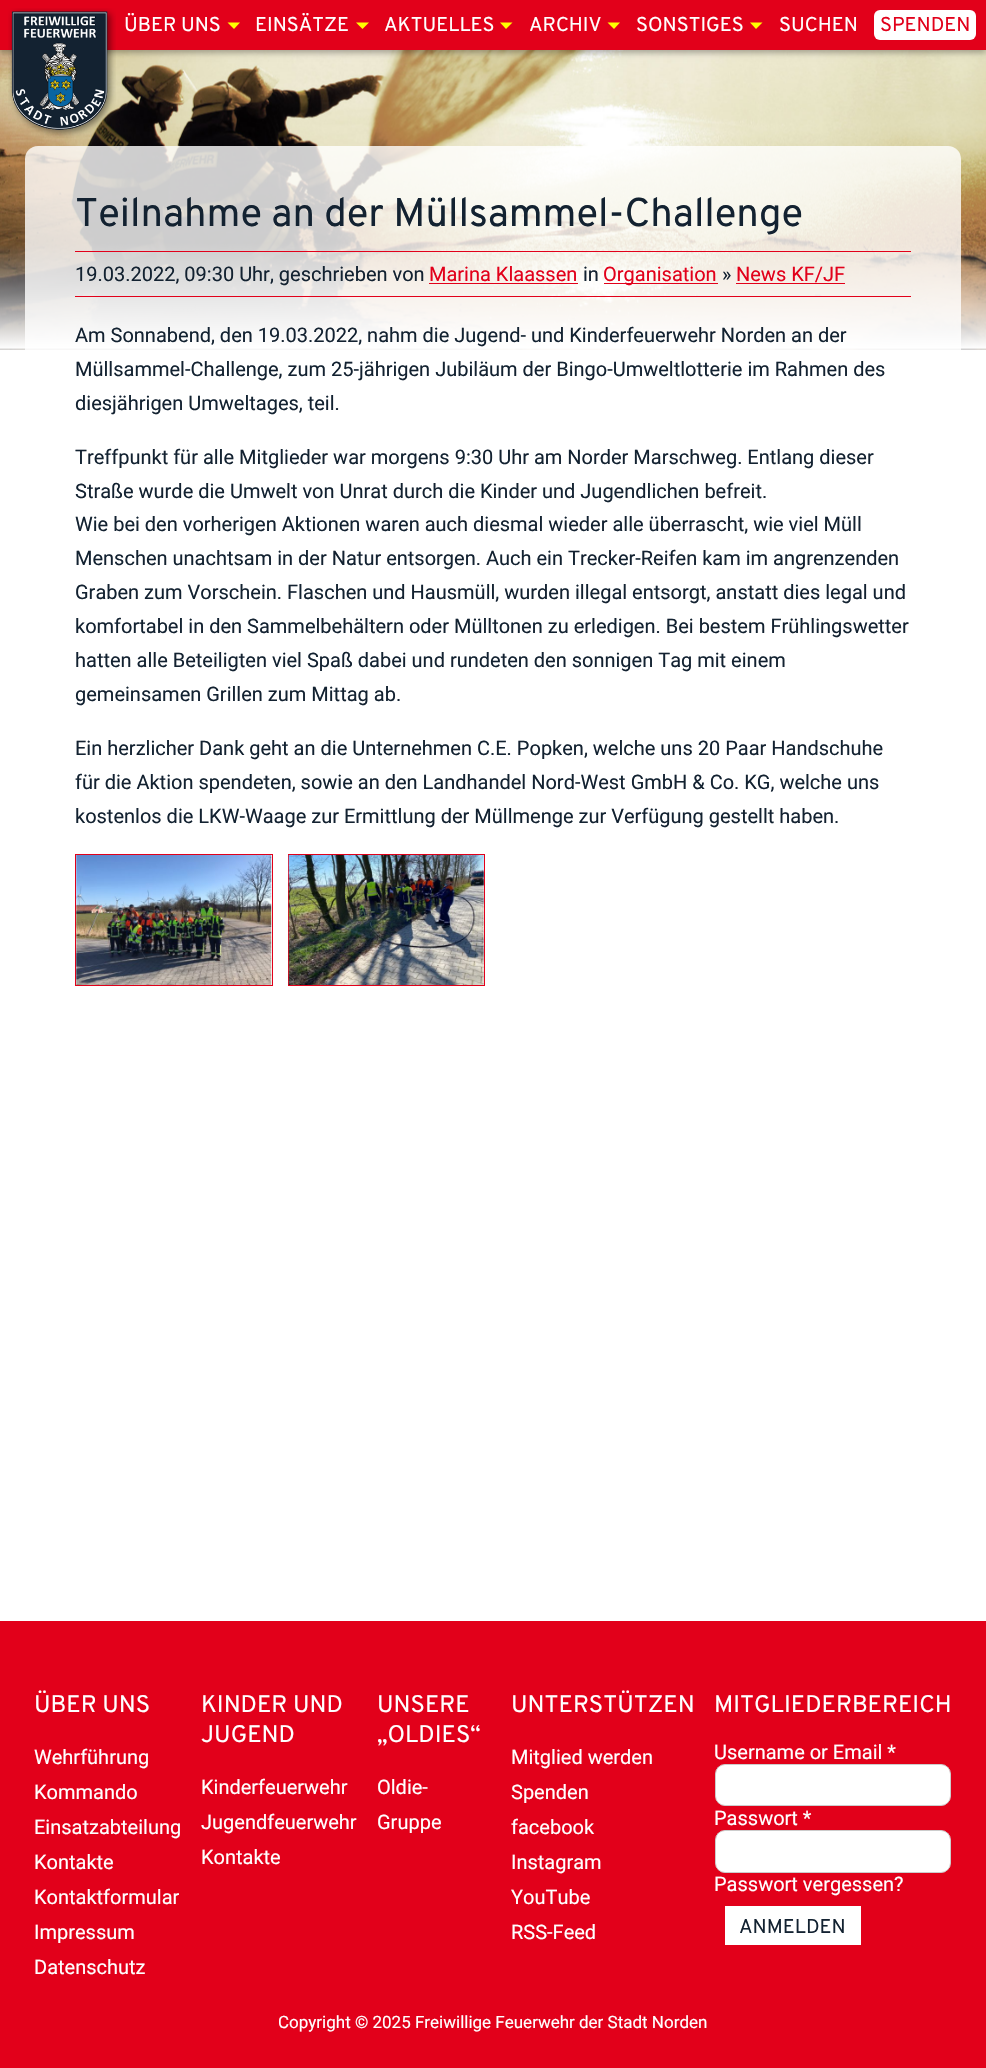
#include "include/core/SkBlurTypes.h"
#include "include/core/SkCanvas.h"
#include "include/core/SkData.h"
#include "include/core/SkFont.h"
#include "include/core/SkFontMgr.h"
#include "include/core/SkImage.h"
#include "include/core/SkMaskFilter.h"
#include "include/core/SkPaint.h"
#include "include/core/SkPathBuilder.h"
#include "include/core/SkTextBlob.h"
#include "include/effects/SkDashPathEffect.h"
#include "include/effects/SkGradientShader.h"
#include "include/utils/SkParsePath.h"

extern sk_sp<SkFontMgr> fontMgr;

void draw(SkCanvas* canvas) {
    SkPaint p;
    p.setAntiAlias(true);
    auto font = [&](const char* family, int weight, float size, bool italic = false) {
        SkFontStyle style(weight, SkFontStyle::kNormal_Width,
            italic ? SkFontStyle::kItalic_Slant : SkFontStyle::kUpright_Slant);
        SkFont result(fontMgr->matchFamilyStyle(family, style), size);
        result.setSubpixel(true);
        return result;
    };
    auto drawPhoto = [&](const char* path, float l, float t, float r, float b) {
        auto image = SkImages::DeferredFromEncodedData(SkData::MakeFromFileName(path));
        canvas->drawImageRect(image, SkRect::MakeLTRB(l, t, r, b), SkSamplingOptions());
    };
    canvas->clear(0xFFFFFFFF);
    drawPhoto("media/2.png", 0, 50, 986, 350);
    p.setColor(0x4D000000);
    p.setMaskFilter(SkMaskFilter::MakeBlur(kNormal_SkBlurStyle, 3));
    canvas->drawRect(SkRect::MakeLTRB(0, 3, 986, 53), p);
    p.setMaskFilter(nullptr);
    p.setColor(0xFFE2001A);
    canvas->drawRect(SkRect::MakeLTRB(0, 0, 986, 50), p);
    drawPhoto("media/1.png", 8, 8, 116, 138);
    auto font1 = font("Overpass", 400, 20);
    p.setColor(0xFFFFFFFF);
    canvas->drawString("ÜBER UNS", 124, 31, font1, p);
    p.setColor(0xFFFFFF00);
    canvas->drawPath(SkPathBuilder().moveTo(227.5f, 22.5f).lineTo(240, 22.5f).lineTo(234, 29).close().detach(), p);
    p.setColor(0xFFFFFFFF);
    canvas->drawString("EINSÄTZE", 255, 31, font1, p);
    p.setColor(0xFFFFFF00);
    canvas->drawPath(SkPathBuilder().moveTo(356, 22.5f).lineTo(369, 22.5f).lineTo(362.5f, 29).close().detach(), p);
    p.setColor(0xFFFFFFFF);
    canvas->drawString("AKTUELLES", 384, 31, font1, p);
    p.setColor(0xFFFFFF00);
    canvas->drawPath(SkPathBuilder().moveTo(500, 22.5f).lineTo(512.5f, 22.5f).lineTo(506, 29).close().detach(), p);
    p.setColor(0xFFFFFFFF);
    canvas->drawString("ARCHIV", 529, 31, font1, p);
    p.setColor(0xFFFFFF00);
    canvas->drawPath(SkPathBuilder().moveTo(607.5f, 22.5f).lineTo(620, 22.5f).lineTo(614, 29).close().detach(), p);
    p.setColor(0xFFFFFFFF);
    canvas->drawString("SONSTIGES", 636, 31, font1, p);
    p.setColor(0xFFFFFF00);
    canvas->drawPath(SkPathBuilder().moveTo(750, 22.5f).lineTo(762.5f, 22.5f).lineTo(756, 29).close().detach(), p);
    p.setColor(0xFFFFFFFF);
    canvas->drawString("SUCHEN", 779, 31, font1, p);
    canvas->drawRoundRect(SkRect::MakeLTRB(874, 10, 976, 40), 6, 6, p);
    p.setColor(0xFFE2001A);
    canvas->drawString("SPENDEN", 880, 31, font1, p);
    p.setColor(0xCCFFFFFF);
    canvas->drawRoundRect(SkRect::MakeLTRB(25, 146, 961, 1045), 13, 13, p);
    auto font2 = font("Overpass", 400, 40);
    p.setColor(0xFF132231);
    canvas->drawString("Teilnahme an der Müllsammel-Challenge", 75, 226, font2, p);
    p.setColor(0xFFE2001A);
    canvas->drawRect(SkRect::MakeLTRB(75, 251, 911, 252), p);
    canvas->drawRect(SkRect::MakeLTRB(75, 296, 911, 297), p);
    auto font3 = font("Roboto", 400, 20);
    p.setColor(0xFF132231);
    canvas->drawString("19.03.2022, 09:30 Uhr, geschrieben von", 75, 281, font3, p);
    p.setColor(0xFFE2001A);
    canvas->drawString("Marina Klaassen", 429, 281, font3, p);
    canvas->drawRect(SkRect::MakeLTRB(429, 283, 578, 284), p);
    p.setColor(0xFF132231);
    canvas->drawString("in", 583, 281, font3, p);
    p.setColor(0xFFE2001A);
    canvas->drawRect(SkRect::MakeLTRB(604, 283, 718, 284), p);
    canvas->drawString("Organisation", 603, 281, font3, p);
    p.setColor(0xFF132231);
    canvas->drawString("»", 722, 281, font3, p);
    p.setColor(0xFFE2001A);
    canvas->drawString("News KF/JF", 736, 281, font3, p);
    canvas->drawRect(SkRect::MakeLTRB(736, 283, 845, 284), p);
    p.setColor(0xFF132231);
    {
        const struct { const char* s; float x, y; } items[] = {
            {"Am Sonnabend, den 19.03.2022, nahm die Jugend- und Kinderfeuerwehr Norden an der", 75, 342},
            {"Müllsammel-Challenge, zum 25-jährigen Jubiläum der Bingo-Umweltlotterie im Rahmen des", 75, 376},
            {"diesjährigen Umweltages, teil.", 75, 410},
            {"Treffpunkt für alle Mitglieder war morgens 9:30 Uhr am Norder Marschweg. Entlang dieser", 75, 464},
            {"Straße wurde die Umwelt von Unrat durch die Kinder und Jugendlichen befreit.", 75, 498},
            {"Wie bei den vorherigen Aktionen waren auch diesmal wieder alle überrascht, wie viel Müll", 75, 531},
            {"Menschen unachtsam in der Natur entsorgen. Auch ein Trecker-Reifen kam im angrenzenden", 75, 565},
            {"Graben zum Vorschein. Flaschen und Hausmüll, wurden illegal entsorgt, anstatt dies legal und", 75, 599},
            {"komfortabel in den Sammelbehältern oder Mülltonen zu erledigen. Bei bestem Frühlingswetter", 75, 633},
            {"hatten alle Beteiligten viel Spaß dabei und rundeten den sonnigen Tag mit einem", 75, 667},
            {"gemeinsamen Grillen zum Mittag ab.", 75, 701},
            {"Ein herzlicher Dank geht an die Unternehmen C.E. Popken, welche uns 20 Paar Handschuhe", 75, 755},
            {"für die Aktion spendeten, sowie an den Landhandel Nord-West GmbH & Co. KG, welche uns", 75, 789},
            {"kostenlos die LKW-Waage zur Ermittlung der Müllmenge zur Verfügung gestellt haben.", 75, 823},
        };
        for (auto [s, x, y] : items) {
            canvas->drawString(s, x, y, font3, p);
        }
    }
    p.setStyle(SkPaint::kStroke_Style);
    p.setStrokeWidth(1);
    p.setColor(0xFFE2001A);
    canvas->drawRect(SkRect::MakeLTRB(75.5f, 854.5f, 272.5f, 985.5f), p);
    drawPhoto("media/3.png", 76, 855, 272, 985);
    canvas->drawRect(SkRect::MakeLTRB(288.5f, 854.5f, 484.5f, 985.5f), p);
    drawPhoto("media/4.png", 288, 855, 484, 985);
    p.setStyle(SkPaint::kFill_Style);
    canvas->drawRect(SkRect::MakeLTRB(0, 1621, 986, 2068), p);
    auto font4 = font("Overpass", 400, 24);
    p.setColor(0xFFFFFFFF);
    canvas->drawString("ÜBER UNS", 34, 1712, font4, p);
    {
        const struct { const char* s; float x, y; } items[] = {
            {"Wehrführung", 34, 1764},
            {"Kommando", 34, 1799},
            {"Einsatzabteilung", 34, 1834},
            {"Kontakte", 34, 1869},
            {"Kontaktformular", 34, 1904},
            {"Impressum", 34, 1939},
            {"Datenschutz", 34, 1974},
        };
        for (auto [s, x, y] : items) {
            canvas->drawString(s, x, y, font3, p);
        }
    }
    canvas->drawString("KINDER UND", 201, 1712, font4, p);
    canvas->drawString("JUGEND", 201, 1742, font4, p);
    {
        const struct { const char* s; float x, y; } items[] = {
            {"Kinderfeuerwehr", 201, 1794},
            {"Jugendfeuerwehr", 201, 1829},
            {"Kontakte", 201, 1864},
        };
        for (auto [s, x, y] : items) {
            canvas->drawString(s, x, y, font3, p);
        }
    }
    canvas->drawString("UNSERE", 377, 1712, font4, p);
    canvas->drawString("„OLDIES“", 377, 1742, font4, p);
    canvas->drawString("Oldie-", 377, 1794, font3, p);
    canvas->drawString("Gruppe", 377, 1829, font3, p);
    canvas->drawString("UNTERSTÜTZEN", 511, 1712, font4, p);
    {
        const struct { const char* s; float x, y; } items[] = {
            {"Mitglied werden", 511, 1764},
            {"Spenden", 511, 1799},
            {"facebook", 511, 1834},
            {"Instagram", 511, 1869},
            {"YouTube", 511, 1904},
            {"RSS-Feed", 511, 1939},
        };
        for (auto [s, x, y] : items) {
            canvas->drawString(s, x, y, font3, p);
        }
    }
    canvas->drawString("MITGLIEDERBEREICH", 714, 1712, font4, p);
    canvas->drawString("Username or Email *", 714, 1759, font3, p);
    canvas->drawRoundRect(SkRect::MakeLTRB(715.5f, 1764.5f, 950.5f, 1805.5f), 9.5f, 9.5f, p);
    p.setStyle(SkPaint::kStroke_Style);
    p.setColor(0xFFCCCCCC);
    canvas->drawRoundRect(SkRect::MakeLTRB(715.5f, 1764.5f, 950.5f, 1805.5f), 9.5f, 9.5f, p);
    p.setStyle(SkPaint::kFill_Style);
    p.setColor(0xFFFFFFFF);
    canvas->drawString("Passwort *", 714, 1825, font3, p);
    canvas->drawRoundRect(SkRect::MakeLTRB(715.5f, 1830.5f, 950.5f, 1872.5f), 9.5f, 9.5f, p);
    p.setStyle(SkPaint::kStroke_Style);
    p.setColor(0xFFCCCCCC);
    canvas->drawRoundRect(SkRect::MakeLTRB(715.5f, 1830.5f, 950.5f, 1872.5f), 9.5f, 9.5f, p);
    p.setStyle(SkPaint::kFill_Style);
    p.setColor(0xFFFFFFFF);
    canvas->drawString("Passwort vergessen?", 714, 1891, font3, p);
    canvas->drawRoundRect(SkRect::MakeLTRB(720, 1901, 866, 1950), 5, 5, p);
    p.setStyle(SkPaint::kStroke_Style);
    p.setStrokeWidth(10);
    p.setColor(0xFFE2001A);
    canvas->drawRoundRect(SkRect::MakeLTRB(720, 1901, 866, 1950), 5, 5, p);
    p.setStyle(SkPaint::kFill_Style);
    p.setColor(0xFF132231);
    canvas->drawString("ANMELDEN", 739, 1933, font1, p);
    auto font5 = font("Roboto", 400, 17);
    p.setColor(0xFFFFFFFF);
    canvas->drawString("Copyright © 2025 Freiwillige Feuerwehr der Stadt Norden", 278, 2028, font5, p);
}
